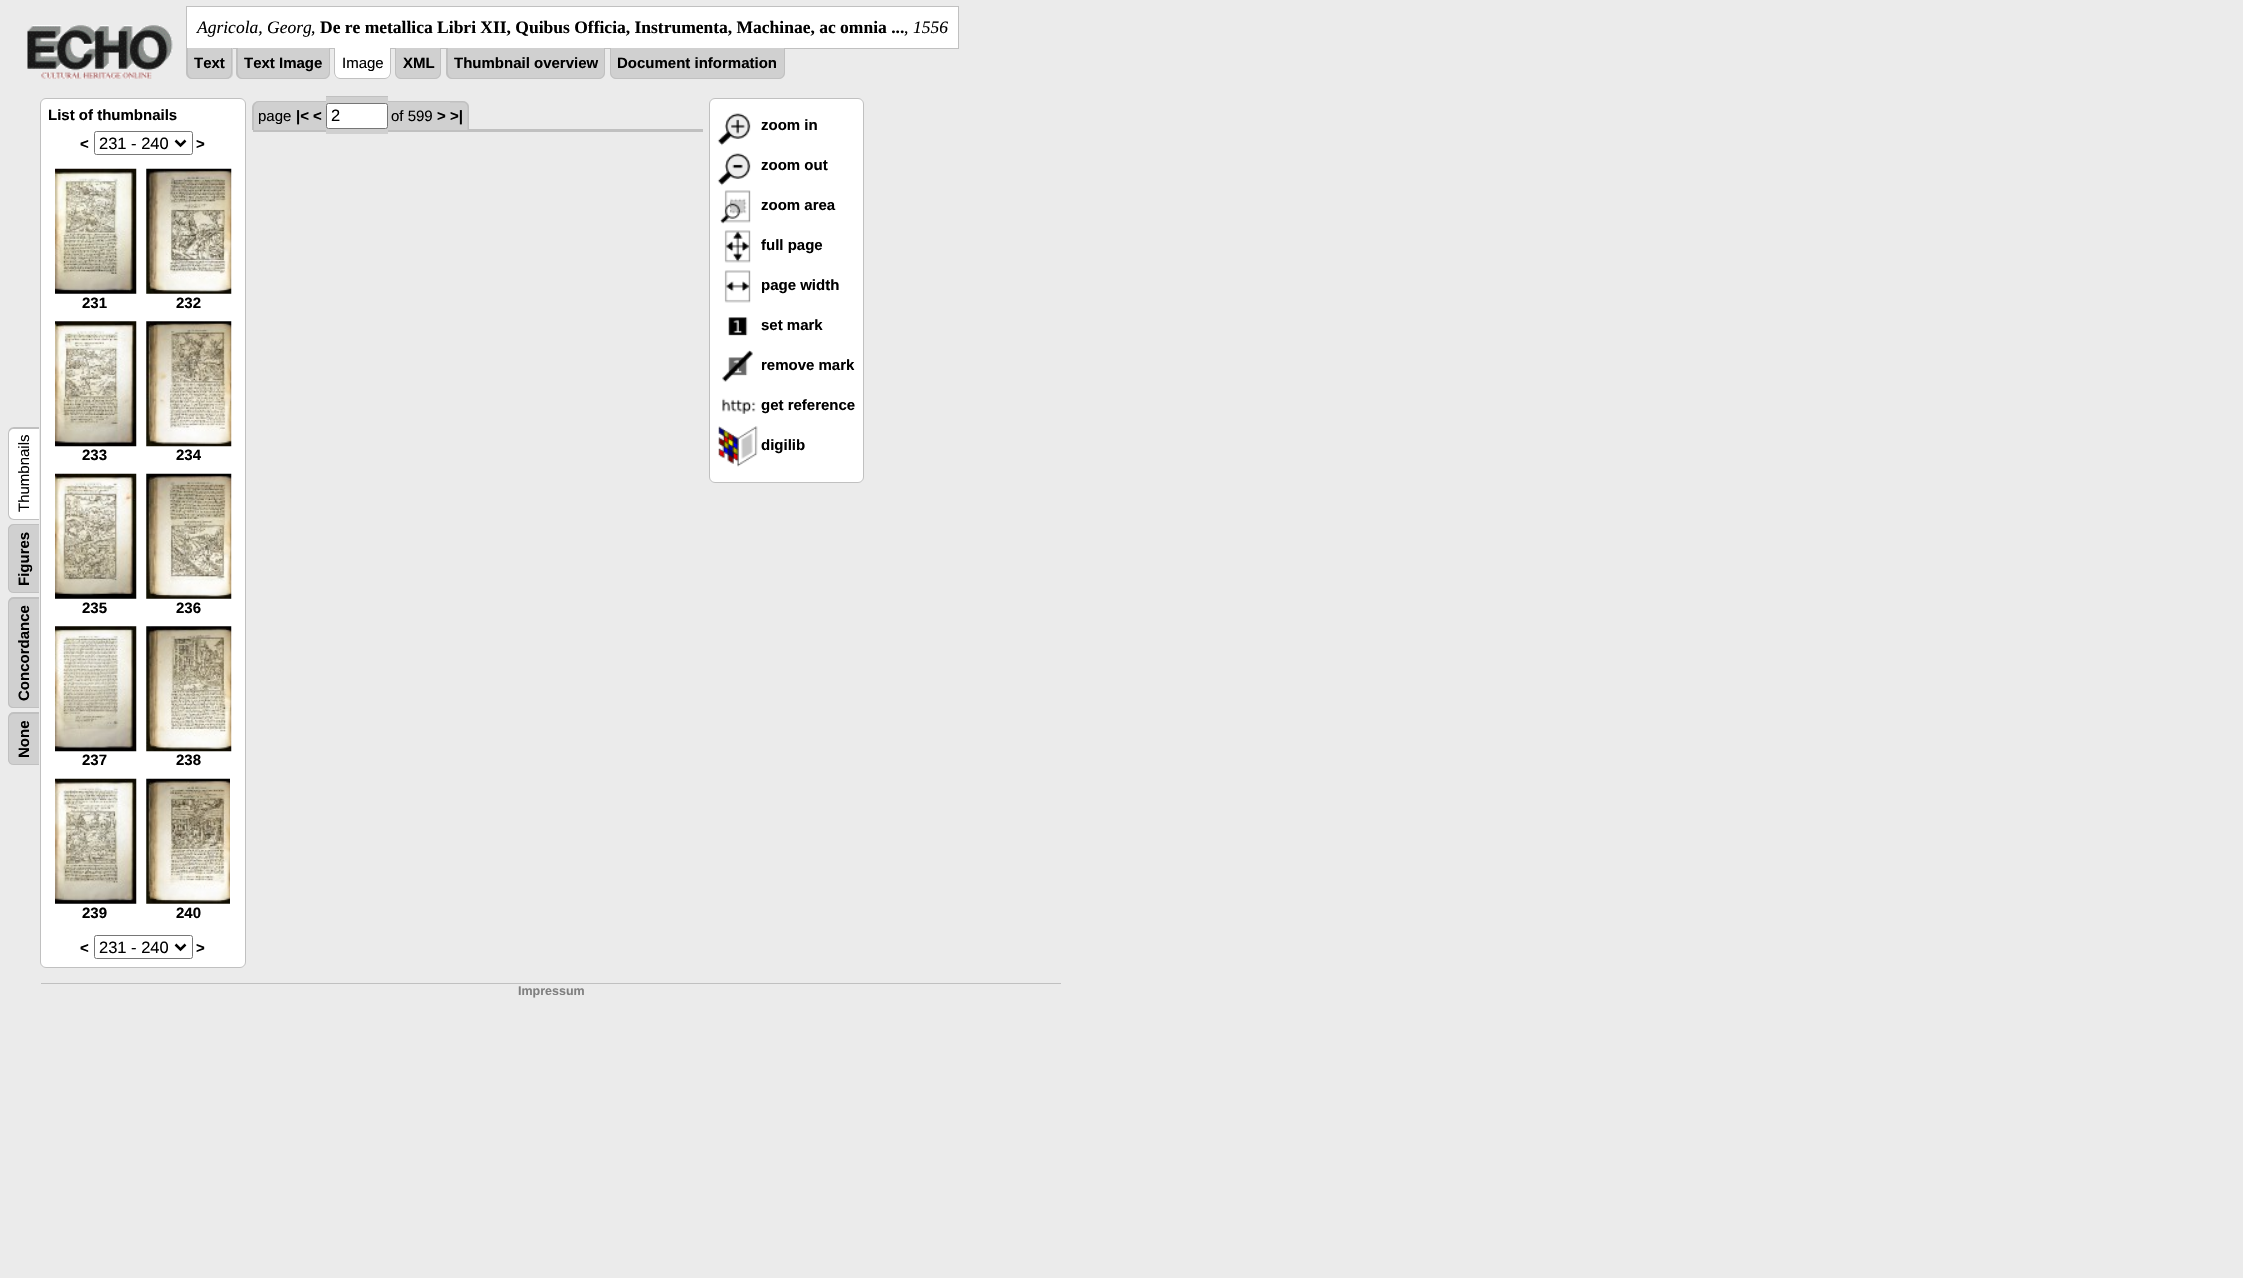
#include "include/core/SkBlurTypes.h"
#include "include/core/SkCanvas.h"
#include "include/core/SkData.h"
#include "include/core/SkFont.h"
#include "include/core/SkFontMgr.h"
#include "include/core/SkImage.h"
#include "include/core/SkMaskFilter.h"
#include "include/core/SkPaint.h"
#include "include/core/SkPathBuilder.h"
#include "include/core/SkTextBlob.h"
#include "include/effects/SkDashPathEffect.h"
#include "include/effects/SkGradientShader.h"
#include "include/utils/SkParsePath.h"

extern sk_sp<SkFontMgr> fontMgr;

void draw(SkCanvas* canvas) {
    SkPaint p;
    p.setAntiAlias(true);
    auto font = [&](const char* family, int weight, float size, bool italic = false) {
        SkFontStyle style(weight, SkFontStyle::kNormal_Width,
            italic ? SkFontStyle::kItalic_Slant : SkFontStyle::kUpright_Slant);
        SkFont result(fontMgr->matchFamilyStyle(family, style), size);
        result.setSubpixel(true);
        return result;
    };
    auto drawPhoto = [&](const char* path, float l, float t, float r, float b) {
        auto image = SkImages::DeferredFromEncodedData(SkData::MakeFromFileName(path));
        canvas->drawImageRect(image, SkRect::MakeLTRB(l, t, r, b), SkSamplingOptions());
    };
    canvas->clear(0xFFEBEBEB);
    drawPhoto("media/1.png", 27, 25, 173, 79);
    p.setColor(0xFFFFFFFF);
    canvas->drawRect(SkRect::MakeLTRB(186.5f, 6.5f, 958.5f, 48.5f), p);
    p.setStyle(SkPaint::kStroke_Style);
    p.setStrokeWidth(1);
    p.setColor(0xFFC0C0C0);
    canvas->drawRect(SkRect::MakeLTRB(186.5f, 6.5f, 958.5f, 48.5f), p);
    auto font1 = font("Liberation Serif", 400, 17.5f, true);
    p.setStyle(SkPaint::kFill_Style);
    p.setColor(0xFF000000);
    canvas->drawString("Agricola, Georg", 197, 33, font1, p);
    auto font2 = font("Liberation Serif", 400, 17.5f);
    canvas->drawString(",", 311, 33, font2, p);
    auto font3 = font("Liberation Serif", 700, 17.5f);
    canvas->drawString("De re metallica Libri XII, Quibus Officia, Instrumenta, Machinae, ac omnia ...", 320, 33, font3, p);
    canvas->drawString(",", 904, 33, font2, p);
    canvas->drawString("1556", 913, 33, font1, p);
    p.setColor(0xFFD0D0D0);
    canvas->drawPath(SkPathBuilder().moveTo(186, 48).lineTo(233, 48).lineTo(233, 73).cubicTo(233, 76.5f, 230.5f, 79, 227, 79).lineTo(192, 79).cubicTo(188.5f, 79, 186, 76.5f, 186, 73).close().detach(), p);
    p.setColor(0xFFC0C0C0);
    canvas->drawPath(SkPathBuilder(SkPathFillType::kEvenOdd).moveTo(186, 48).lineTo(232, 48).lineTo(232, 72).cubicTo(232, 76, 230, 79, 226, 79).lineTo(192, 79).cubicTo(189, 79, 186, 76, 186, 72).close().moveTo(188, 48).lineTo(231, 48).lineTo(231, 72).cubicTo(231, 75, 229, 78, 226, 78).lineTo(192, 78).cubicTo(190, 78, 188, 75, 188, 72).close().detach(), p);
    auto font4 = font("Liberation Sans", 700, 15);
    p.setColor(0xFF000000);
    canvas->drawString("Text", 194, 68, font4, p);
    p.setColor(0xFFD0D0D0);
    canvas->drawPath(SkPathBuilder().moveTo(236, 48).lineTo(330, 48).lineTo(330, 73).cubicTo(330, 76.5f, 327.5f, 79, 324, 79).lineTo(242, 79).cubicTo(238.5f, 79, 236, 76.5f, 236, 73).close().detach(), p);
    p.setColor(0xFFC0C0C0);
    canvas->drawPath(SkPathBuilder(SkPathFillType::kEvenOdd).moveTo(236, 48).lineTo(330, 48).lineTo(330, 72).cubicTo(330, 76, 327, 79, 324, 79).lineTo(242, 79).cubicTo(239, 79, 236, 76, 236, 72).close().moveTo(238, 48).lineTo(329, 48).lineTo(329, 72).cubicTo(329, 75, 327, 78, 324, 78).lineTo(242, 78).cubicTo(240, 78, 238, 75, 238, 72).close().detach(), p);
    p.setColor(0xFF000000);
    canvas->drawString("Text Image", 244, 68, font4, p);
    p.setColor(0xFFFFFFFF);
    canvas->drawPath(SkPathBuilder().moveTo(334, 48).lineTo(391, 48).lineTo(391, 73).cubicTo(391, 76.5f, 388.5f, 79, 385, 79).lineTo(340, 79).cubicTo(336.5f, 79, 334, 76.5f, 334, 73).close().detach(), p);
    p.setColor(0xFFC0C0C0);
    canvas->drawPath(SkPathBuilder(SkPathFillType::kEvenOdd).moveTo(334, 48).lineTo(391, 48).lineTo(391, 72).cubicTo(391, 76, 388, 79, 385, 79).lineTo(340, 79).cubicTo(337, 79, 334, 76, 334, 72).close().moveTo(335, 48).lineTo(390, 48).lineTo(390, 72).cubicTo(390, 75, 388, 78, 385, 78).lineTo(340, 78).cubicTo(337, 78, 335, 75, 335, 72).close().detach(), p);
    auto font5 = font("Liberation Sans", 400, 15);
    p.setColor(0xFF000000);
    canvas->drawString("Image", 342, 68, font5, p);
    p.setColor(0xFFD0D0D0);
    canvas->drawPath(SkPathBuilder().moveTo(395, 48).lineTo(441, 48).lineTo(441, 73).cubicTo(441, 76.5f, 438.5f, 79, 435, 79).lineTo(401, 79).cubicTo(397.5f, 79, 395, 76.5f, 395, 73).close().detach(), p);
    p.setColor(0xFFC0C0C0);
    canvas->drawPath(SkPathBuilder(SkPathFillType::kEvenOdd).moveTo(395, 48).lineTo(441, 48).lineTo(441, 72).cubicTo(441, 76, 438, 79, 435, 79).lineTo(401, 79).cubicTo(398, 79, 395, 76, 395, 72).close().moveTo(396, 48).lineTo(440, 48).lineTo(440, 72).cubicTo(440, 75, 438, 78, 435, 78).lineTo(401, 78).cubicTo(398, 78, 396, 75, 396, 72).close().detach(), p);
    p.setColor(0xFF000000);
    canvas->drawString("XML", 403, 68, font4, p);
    p.setColor(0xFFD0D0D0);
    canvas->drawPath(SkPathBuilder().moveTo(446, 48).lineTo(605, 48).lineTo(605, 73).cubicTo(605, 76.5f, 602.5f, 79, 599, 79).lineTo(452, 79).cubicTo(448.5f, 79, 446, 76.5f, 446, 73).close().detach(), p);
    p.setColor(0xFFC0C0C0);
    canvas->drawPath(SkPathBuilder(SkPathFillType::kEvenOdd).moveTo(446, 48).lineTo(605, 48).lineTo(605, 72).cubicTo(605, 76, 602, 79, 599, 79).lineTo(452, 79).cubicTo(449, 79, 446, 76, 446, 72).close().moveTo(448, 48).lineTo(604, 48).lineTo(604, 72).cubicTo(604, 75, 602, 78, 599, 78).lineTo(452, 78).cubicTo(450, 78, 448, 75, 448, 72).close().detach(), p);
    p.setColor(0xFF000000);
    canvas->drawString("Thumbnail overview", 454, 68, font4, p);
    p.setColor(0xFFD0D0D0);
    canvas->drawPath(SkPathBuilder().moveTo(610, 48).lineTo(785, 48).lineTo(785, 73).cubicTo(785, 76.5f, 782.5f, 79, 779, 79).lineTo(616, 79).cubicTo(612.5f, 79, 610, 76.5f, 610, 73).close().detach(), p);
    p.setColor(0xFFC0C0C0);
    canvas->drawPath(SkPathBuilder(SkPathFillType::kEvenOdd).moveTo(610, 48).lineTo(785, 48).lineTo(785, 72).cubicTo(785, 76, 782, 79, 779, 79).lineTo(616, 79).cubicTo(613, 79, 610, 76, 610, 72).close().moveTo(611, 48).lineTo(784, 48).lineTo(784, 72).cubicTo(784, 75, 782, 78, 779, 78).lineTo(616, 78).cubicTo(613, 78, 611, 75, 611, 72).close().detach(), p);
    p.setColor(0xFF000000);
    canvas->drawString("Document information", 617, 68, font4, p);
    p.setColor(0xFFFFFFFF);
    canvas->drawPath(SkPathBuilder().moveTo(8, 514).lineTo(8, 434).cubicTo(8, 430, 10, 427, 14, 427).lineTo(39, 427).lineTo(39, 520).lineTo(14, 520).cubicTo(10, 520, 8, 517, 8, 514).close().detach(), p);
    p.setColor(0xFFC0C0C0);
    canvas->drawPath(SkPathBuilder(SkPathFillType::kEvenOdd).moveTo(8, 514).lineTo(8, 434).cubicTo(8, 430, 10, 427, 14, 427).lineTo(39, 427).lineTo(39, 520).lineTo(14, 520).cubicTo(10, 520, 8, 517, 8, 514).close().moveTo(9, 514).lineTo(9, 434).cubicTo(9, 431, 11, 429, 14, 429).lineTo(39, 429).lineTo(39, 519).lineTo(14, 519).cubicTo(11, 519, 9, 516, 9, 514).close().detach(), p);
    p.setColor(0xFF000000);
    canvas->save();
    canvas->rotate(-90, 29, 512);
    canvas->drawString("Thumbnails", 29, 512, font5, p);
    canvas->restore();
    p.setColor(0xFFD0D0D0);
    canvas->drawPath(SkPathBuilder().moveTo(8, 587).lineTo(8, 530).cubicTo(8, 527, 10, 524, 14, 524).lineTo(39, 524).lineTo(39, 593).lineTo(14, 593).cubicTo(10, 593, 8, 590, 8, 587).close().detach(), p);
    p.setColor(0xFFC0C0C0);
    canvas->drawPath(SkPathBuilder(SkPathFillType::kEvenOdd).moveTo(8, 587).lineTo(8, 530).cubicTo(8, 527, 10, 524, 14, 524).lineTo(39, 524).lineTo(39, 593).lineTo(14, 593).cubicTo(10, 593, 8, 590, 8, 587).close().moveTo(9, 587).lineTo(9, 530).cubicTo(9, 528, 11, 525, 14, 525).lineTo(39, 525).lineTo(39, 592).lineTo(14, 592).cubicTo(11, 592, 9, 590, 9, 587).close().detach(), p);
    p.setColor(0xFF000000);
    canvas->save();
    canvas->rotate(-90, 29, 586);
    canvas->drawString("Figures", 29, 586, font4, p);
    canvas->restore();
    p.setColor(0xFFD0D0D0);
    canvas->drawPath(SkPathBuilder().moveTo(8, 702).lineTo(8, 604).cubicTo(8, 600, 10, 597, 14, 597).lineTo(39, 597).lineTo(39, 708).lineTo(14, 708).cubicTo(10, 708, 8, 706, 8, 702).close().detach(), p);
    p.setColor(0xFFC0C0C0);
    canvas->drawPath(SkPathBuilder(SkPathFillType::kEvenOdd).moveTo(8, 702).lineTo(8, 604).cubicTo(8, 600, 10, 597, 14, 597).lineTo(39, 597).lineTo(39, 708).lineTo(14, 708).cubicTo(10, 708, 8, 706, 8, 702).close().moveTo(9, 702).lineTo(9, 604).cubicTo(9, 601, 11, 599, 14, 599).lineTo(39, 599).lineTo(39, 707).lineTo(14, 707).cubicTo(11, 707, 9, 705, 9, 702).close().detach(), p);
    p.setColor(0xFF000000);
    canvas->save();
    canvas->rotate(-90, 29, 701);
    canvas->drawString("Concordance", 29, 701, font4, p);
    canvas->restore();
    p.setColor(0xFFD0D0D0);
    canvas->drawPath(SkPathBuilder().moveTo(8, 759).lineTo(8, 719).cubicTo(8, 715, 10, 712, 14, 712).lineTo(39, 712).lineTo(39, 765).lineTo(14, 765).cubicTo(10, 765, 8, 762, 8, 759).close().detach(), p);
    p.setColor(0xFFC0C0C0);
    canvas->drawPath(SkPathBuilder(SkPathFillType::kEvenOdd).moveTo(8, 759).lineTo(8, 719).cubicTo(8, 715, 10, 712, 14, 712).lineTo(39, 712).lineTo(39, 765).lineTo(14, 765).cubicTo(10, 765, 8, 762, 8, 759).close().moveTo(9, 759).lineTo(9, 719).cubicTo(9, 716, 11, 714, 14, 714).lineTo(39, 714).lineTo(39, 764).lineTo(14, 764).cubicTo(11, 764, 9, 762, 9, 759).close().detach(), p);
    p.setColor(0xFF000000);
    canvas->save();
    canvas->rotate(-90, 29, 758);
    canvas->drawString("None", 29, 758, font4, p);
    canvas->restore();
    p.setColor(0xFFFFFFFF);
    canvas->drawRoundRect(SkRect::MakeLTRB(40.5f, 98.5f, 245.5f, 967.5f), 5.5f, 5.5f, p);
    p.setStyle(SkPaint::kStroke_Style);
    p.setColor(0xFFC0C0C0);
    canvas->drawRoundRect(SkRect::MakeLTRB(40.5f, 98.5f, 245.5f, 967.5f), 5.5f, 5.5f, p);
    p.setStyle(SkPaint::kFill_Style);
    p.setColor(0xFF000000);
    canvas->drawString("List of thumbnails", 48, 120, font4, p);
    canvas->drawString("<", 80, 149, font4, p);
    p.setStyle(SkPaint::kStroke_Style);
    p.setColor(0xFF767676);
    canvas->drawRoundRect(SkRect::MakeLTRB(94.5f, 131.5f, 192.5f, 154.5f), 2, 2, p);
    p.setStrokeWidth(2.5f);
    p.setColor(0xFF000000);
    canvas->drawPath(SkPathBuilder().moveTo(175.5f, 140.5f).lineTo(180.5f, 145.5f).lineTo(185.5f, 140.5f).detach(), p);
    auto font6 = font("Liberation Sans", 400, 16.5f);
    p.setStyle(SkPaint::kFill_Style);
    canvas->drawString("231 - 240", 99, 149, font6, p);
    canvas->drawString(">", 196, 149, font4, p);
    drawPhoto("media/2.png", 55, 168, 137, 294);
    canvas->drawString("231", 82, 308, font4, p);
    drawPhoto("media/3.png", 146, 168, 232, 294);
    canvas->drawString("232", 176, 308, font4, p);
    drawPhoto("media/4.png", 55, 321, 137, 447);
    canvas->drawString("233", 82, 460, font4, p);
    drawPhoto("media/5.png", 146, 321, 232, 447);
    canvas->drawString("234", 176, 460, font4, p);
    drawPhoto("media/6.png", 55, 473, 137, 599);
    canvas->drawString("235", 82, 613, font4, p);
    drawPhoto("media/7.png", 146, 473, 232, 599);
    canvas->drawString("236", 176, 613, font4, p);
    drawPhoto("media/8.png", 55, 626, 137, 752);
    canvas->drawString("237", 82, 765, font4, p);
    drawPhoto("media/9.png", 146, 626, 232, 752);
    canvas->drawString("238", 176, 765, font4, p);
    drawPhoto("media/10.png", 55, 778, 137, 904);
    canvas->drawString("239", 82, 918, font4, p);
    drawPhoto("media/11.png", 146, 778, 230, 904);
    canvas->drawString("240", 176, 918, font4, p);
    canvas->drawString("<", 80, 953, font4, p);
    p.setStyle(SkPaint::kStroke_Style);
    p.setStrokeWidth(1);
    p.setColor(0xFF767676);
    canvas->drawRoundRect(SkRect::MakeLTRB(94.5f, 935.5f, 192.5f, 958.5f), 2, 2, p);
    p.setStrokeWidth(2.5f);
    p.setColor(0xFF000000);
    canvas->drawPath(SkPathBuilder().moveTo(175.5f, 944.5f).lineTo(180.5f, 949.5f).lineTo(185.5f, 944.5f).detach(), p);
    p.setStyle(SkPaint::kFill_Style);
    canvas->drawString("231 - 240", 99, 953, font6, p);
    canvas->drawString(">", 196, 953, font4, p);
    p.setColor(0xFFC0C0C0);
    canvas->drawRect(SkRect::MakeLTRB(253, 129, 703, 132), p);
    p.setColor(0xFFD0D0D0);
    canvas->drawPath(SkPathBuilder().moveTo(259, 101).lineTo(296, 101).lineTo(296, 130).lineTo(253, 130).lineTo(253, 107).cubicTo(253, 103.5f, 255.5f, 101, 259, 101).close().detach(), p);
    p.setColor(0xFFC0C0C0);
    canvas->drawPath(SkPathBuilder(SkPathFillType::kEvenOdd).moveTo(259, 101).lineTo(296, 101).lineTo(296, 130).lineTo(252, 130).lineTo(252, 108).cubicTo(252, 104, 255, 101, 259, 101).close().moveTo(259, 102).lineTo(296, 102).lineTo(296, 130).lineTo(254, 130).lineTo(254, 108).cubicTo(254, 105, 256, 102, 259, 102).close().detach(), p);
    {
        const struct { float l, t, r, b; SkColor color; } items[] = {
            {296, 102, 309, 130, 0xFFD0D0D0},
            {296, 101, 309, 102, 0xFFC0C0C0},
            {309, 101, 326, 130, 0xFFD0D0D0},
            {309, 101, 326, 102, 0xFFC0C0C0},
            {326, 97, 388, 134, 0xFFD0D0D0},
            {326, 96, 388, 97, 0xFFC0C0C0},
            {388, 101, 391, 130, 0xFFD0D0D0},
            {388, 101, 438, 102, 0xFFC0C0C0},
            {391, 102, 438, 130, 0xFFD0D0D0},
            {438, 101, 450, 130, 0xFFD0D0D0},
            {438, 101, 450, 102, 0xFFC0C0C0},
        };
        for (auto [l, t, r, b, color] : items) {
            p.setColor(color);
            canvas->drawRect(SkRect::MakeLTRB(l, t, r, b), p);
        }
    }
    p.setColor(0xFFD0D0D0);
    canvas->drawPath(SkPathBuilder().moveTo(450, 101).lineTo(463, 101).cubicTo(466.5f, 101, 469, 103.5f, 469, 107).lineTo(469, 130).lineTo(450, 130).close().detach(), p);
    p.setColor(0xFFC0C0C0);
    canvas->drawPath(SkPathBuilder(SkPathFillType::kEvenOdd).moveTo(450, 101).lineTo(462.5f, 101).cubicTo(466, 101, 469, 104, 469, 107.5f).lineTo(469, 130).lineTo(450, 130).close().moveTo(450, 102.5f).lineTo(462.5f, 102.5f).cubicTo(465.5f, 102.5f, 467.5f, 104.5f, 467.5f, 107.5f).lineTo(467.5f, 130).lineTo(450, 130).close().detach(), p);
    p.setColor(0xFF000000);
    canvas->drawString("page", 258, 121, font5, p);
    canvas->drawString("|< <", 296, 121, font4, p);
    p.setColor(0xFFFFFFFF);
    canvas->drawRoundRect(SkRect::MakeLTRB(326.5f, 103.5f, 387.5f, 128.5f), 2, 2, p);
    p.setStyle(SkPaint::kStroke_Style);
    p.setStrokeWidth(1);
    p.setColor(0xFF767676);
    canvas->drawRoundRect(SkRect::MakeLTRB(326.5f, 103.5f, 387.5f, 128.5f), 2, 2, p);
    p.setStyle(SkPaint::kFill_Style);
    p.setColor(0xFF000000);
    canvas->drawString("2", 331, 121, font6, p);
    canvas->drawString("of 599", 391, 121, font5, p);
    canvas->drawString("> >|", 437, 121, font4, p);
    p.setColor(0xFFFFFFFF);
    canvas->drawRoundRect(SkRect::MakeLTRB(709.5f, 98.5f, 863.5f, 482.5f), 5.5f, 5.5f, p);
    p.setStyle(SkPaint::kStroke_Style);
    p.setColor(0xFFC0C0C0);
    canvas->drawRoundRect(SkRect::MakeLTRB(709.5f, 98.5f, 863.5f, 482.5f), 5.5f, 5.5f, p);
    drawPhoto("media/12.png", 717, 113, 751, 146);
    p.setStyle(SkPaint::kFill_Style);
    p.setColor(0xFF000000);
    canvas->drawString("zoom in", 761, 130, font4, p);
    drawPhoto("media/13.png", 717, 153, 751, 186);
    canvas->drawString("zoom out", 761, 170, font4, p);
    drawPhoto("media/14.png", 720, 190, 751, 224);
    canvas->drawString("zoom area", 761, 210, font4, p);
    drawPhoto("media/15.png", 724, 230, 751, 263);
    canvas->drawString("full page", 761, 250, font4, p);
    drawPhoto("media/16.png", 724, 270, 751, 303);
    canvas->drawString("page width", 761, 290, font4, p);
    drawPhoto("media/17.png", 728, 317, 748, 336);
    canvas->drawString("set mark", 761, 330, font4, p);
    drawPhoto("media/18.png", 722, 350, 753, 382);
    canvas->drawString("remove mark", 761, 370, font4, p);
    drawPhoto("media/19.png", 722, 398, 756, 414);
    canvas->drawString("get reference", 761, 410, font4, p);
    drawPhoto("media/20.png", 718, 426, 758, 467);
    canvas->drawString("digilib", 761, 450, font4, p);
    p.setColor(0xFFC0C0C0);
    canvas->drawRect(SkRect::MakeLTRB(41, 983, 1061, 984), p);
    auto font7 = font("Liberation Sans", 700, 12.5f);
    p.setColor(0xFF808080);
    canvas->drawString("Impressum", 518, 995, font7, p);
}
